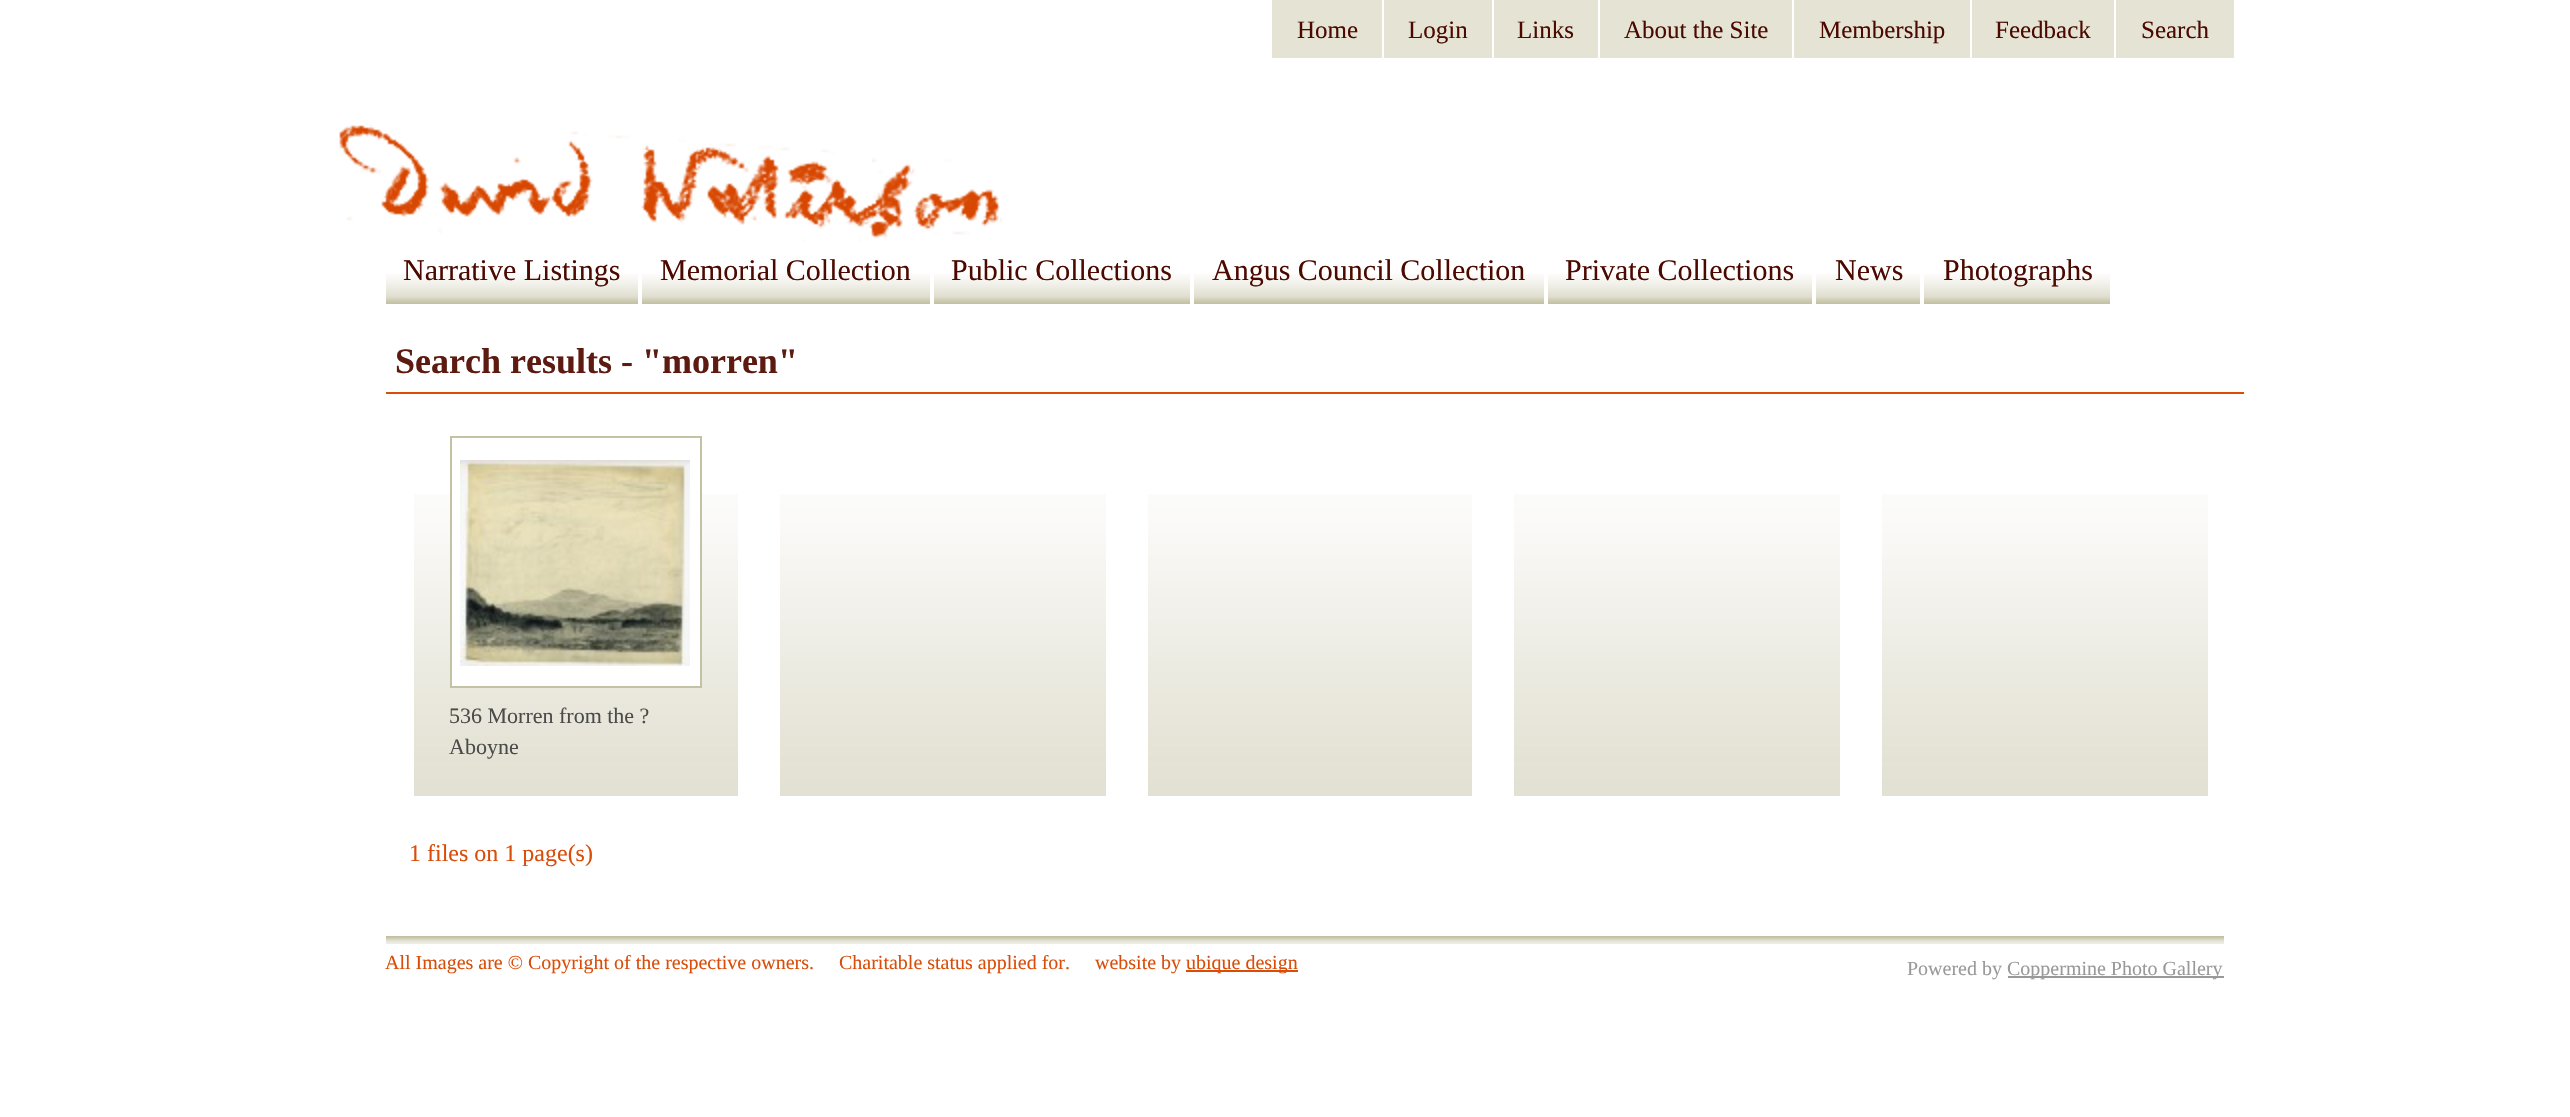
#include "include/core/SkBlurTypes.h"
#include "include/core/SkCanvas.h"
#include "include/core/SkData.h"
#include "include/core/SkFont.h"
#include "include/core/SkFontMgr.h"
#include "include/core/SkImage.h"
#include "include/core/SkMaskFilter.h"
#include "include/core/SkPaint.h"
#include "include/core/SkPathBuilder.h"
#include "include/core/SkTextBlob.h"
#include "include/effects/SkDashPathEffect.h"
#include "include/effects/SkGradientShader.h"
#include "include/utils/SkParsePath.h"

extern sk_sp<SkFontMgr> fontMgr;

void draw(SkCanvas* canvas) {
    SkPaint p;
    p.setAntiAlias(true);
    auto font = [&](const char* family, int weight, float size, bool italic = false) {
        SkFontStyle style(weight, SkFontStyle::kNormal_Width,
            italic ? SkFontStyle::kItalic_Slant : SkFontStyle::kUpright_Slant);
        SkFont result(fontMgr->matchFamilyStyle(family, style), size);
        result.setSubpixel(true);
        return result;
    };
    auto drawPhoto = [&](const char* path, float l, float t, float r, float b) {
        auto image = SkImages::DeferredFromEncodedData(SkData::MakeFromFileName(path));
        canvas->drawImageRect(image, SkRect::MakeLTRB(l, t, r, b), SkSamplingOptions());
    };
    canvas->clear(0xFFFFFFFF);
    p.setColor(0xFFE4E3D4);
    canvas->drawRect(SkRect::MakeLTRB(1272, 0, 1382, 58), p);
    auto font1 = font("Liberation Serif", 400, 25);
    p.setColor(0xFF4B0900);
    canvas->drawString("Home", 1297, 38, font1, p);
    p.setColor(0xFFE4E3D4);
    canvas->drawRect(SkRect::MakeLTRB(1384, 0, 1492, 58), p);
    p.setColor(0xFF4B0900);
    canvas->drawString("Login", 1408, 38, font1, p);
    p.setColor(0xFFE4E3D4);
    canvas->drawRect(SkRect::MakeLTRB(1494, 0, 1598, 58), p);
    p.setColor(0xFF4B0900);
    canvas->drawString("Links", 1517, 38, font1, p);
    p.setColor(0xFFE4E3D4);
    canvas->drawRect(SkRect::MakeLTRB(1600, 0, 1792, 58), p);
    p.setColor(0xFF4B0900);
    canvas->drawString("About the Site", 1624, 38, font1, p);
    p.setColor(0xFFE4E3D4);
    canvas->drawRect(SkRect::MakeLTRB(1794, 0, 1970, 58), p);
    p.setColor(0xFF4B0900);
    canvas->drawString("Membership", 1819, 38, font1, p);
    p.setColor(0xFFE4E3D4);
    canvas->drawRect(SkRect::MakeLTRB(1972, 0, 2114, 58), p);
    p.setColor(0xFF4B0900);
    canvas->drawString("Feedback", 1995, 38, font1, p);
    p.setColor(0xFFE4E3D4);
    canvas->drawRect(SkRect::MakeLTRB(2116, 0, 2234, 58), p);
    p.setColor(0xFF4B0900);
    canvas->drawString("Search", 2141, 38, font1, p);
    drawPhoto("media/1.png", 339, 125, 1002, 242);
    drawPhoto("media/2.png", 386, 274, 638, 304);
    auto font2 = font("Liberation Serif", 400, 30);
    canvas->drawString("Narrative Listings", 403, 280, font2, p);
    drawPhoto("media/3.png", 642, 274, 930, 304);
    canvas->drawString("Memorial Collection", 660, 280, font2, p);
    drawPhoto("media/4.png", 934, 274, 1190, 304);
    canvas->drawString("Public Collections", 951, 280, font2, p);
    drawPhoto("media/5.png", 1194, 274, 1544, 304);
    canvas->drawString("Angus Council Collection", 1212, 280, font2, p);
    drawPhoto("media/6.png", 1548, 274, 1812, 304);
    canvas->drawString("Private Collections", 1565, 280, font2, p);
    drawPhoto("media/7.png", 1816, 274, 1920, 304);
    canvas->drawString("News", 1835, 280, font2, p);
    drawPhoto("media/8.png", 1924, 274, 2110, 304);
    canvas->drawString("Photographs", 1943, 280, font2, p);
    p.setColor(0xFFD94D09);
    canvas->drawRect(SkRect::MakeLTRB(386, 392, 2244, 394), p);
    auto font3 = font("Liberation Serif", 700, 36);
    p.setColor(0xFF5D1A11);
    canvas->drawString("Search results - \"morren\"", 395, 373, font3, p);
    drawPhoto("media/9.png", 414, 494, 738, 796);
    p.setColor(0xFFFFFFFF);
    canvas->drawRect(SkRect::MakeLTRB(452, 494, 700, 686), p);
    p.setStyle(SkPaint::kStroke_Style);
    p.setStrokeWidth(2);
    p.setColor(0xFFC4C2A4);
    canvas->drawRect(SkRect::MakeLTRB(451, 437, 701, 687), p);
    drawPhoto("media/10.png", 460, 460, 690, 666);
    auto font4 = font("Liberation Serif", 400, 22);
    p.setStyle(SkPaint::kFill_Style);
    p.setColor(0xFF4B4B4B);
    canvas->drawString("536 Morren from the ?", 449, 723, font4, p);
    canvas->drawString("Aboyne", 449, 754, font4, p);
    drawPhoto("media/11.png", 780, 494, 1106, 796);
    drawPhoto("media/9.png", 1148, 494, 1472, 796);
    drawPhoto("media/11.png", 1514, 494, 1840, 796);
    drawPhoto("media/11.png", 1882, 494, 2208, 796);
    auto font5 = font("Liberation Serif", 400, 24);
    p.setColor(0xFFD94D09);
    canvas->drawString("1 files on 1 page(s)", 409, 861, font5, p);
    auto font6 = font("Liberation Serif", 400, 20);
    canvas->drawString("All Images are © Copyright of the respective owners.     Charitable status applied for.     website by", 385, 969, font6, p);
    canvas->drawRect(SkRect::MakeLTRB(1186, 970, 1298, 972), p);
    canvas->drawString("ubique design", 1186, 969, font6, p);
    drawPhoto("media/12.png", 386, 936, 2224, 944);
    p.setColor(0xFF999999);
    canvas->drawString("Powered by", 1907, 975, font6, p);
    canvas->drawRect(SkRect::MakeLTRB(2008, 976, 2224, 978), p);
    canvas->drawString("Coppermine Photo Gallery", 2007, 975, font6, p);
}
